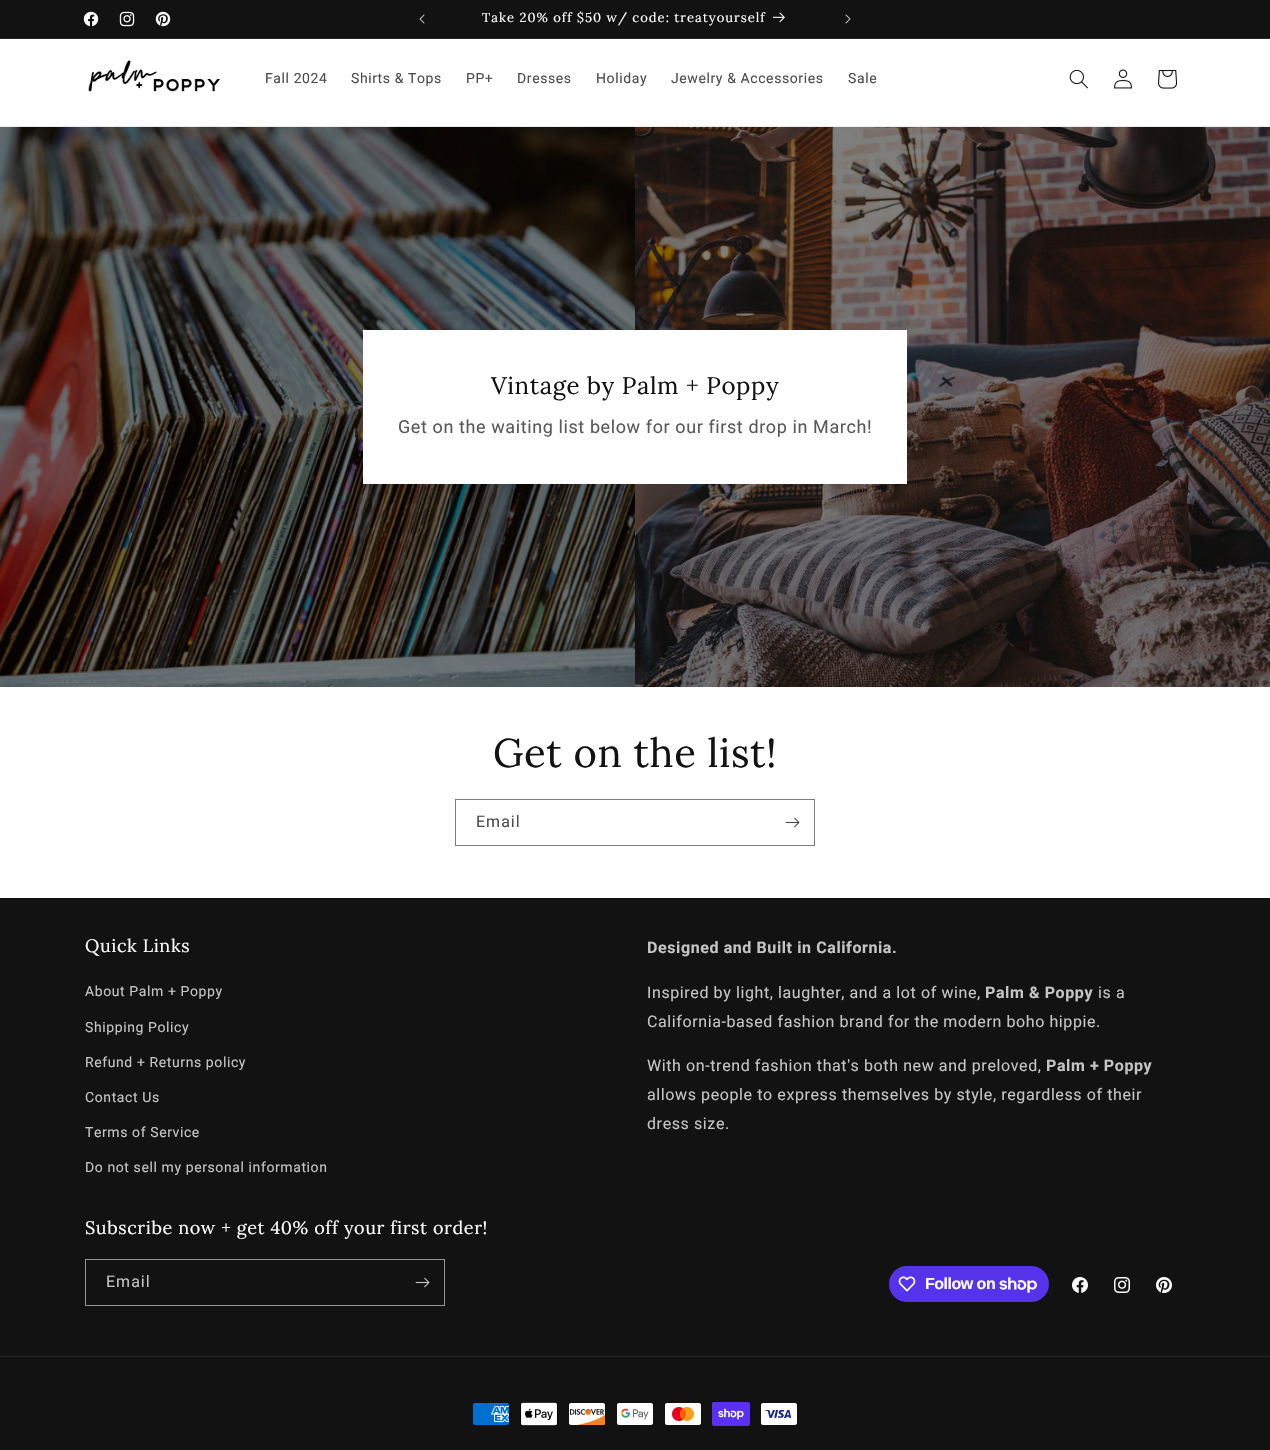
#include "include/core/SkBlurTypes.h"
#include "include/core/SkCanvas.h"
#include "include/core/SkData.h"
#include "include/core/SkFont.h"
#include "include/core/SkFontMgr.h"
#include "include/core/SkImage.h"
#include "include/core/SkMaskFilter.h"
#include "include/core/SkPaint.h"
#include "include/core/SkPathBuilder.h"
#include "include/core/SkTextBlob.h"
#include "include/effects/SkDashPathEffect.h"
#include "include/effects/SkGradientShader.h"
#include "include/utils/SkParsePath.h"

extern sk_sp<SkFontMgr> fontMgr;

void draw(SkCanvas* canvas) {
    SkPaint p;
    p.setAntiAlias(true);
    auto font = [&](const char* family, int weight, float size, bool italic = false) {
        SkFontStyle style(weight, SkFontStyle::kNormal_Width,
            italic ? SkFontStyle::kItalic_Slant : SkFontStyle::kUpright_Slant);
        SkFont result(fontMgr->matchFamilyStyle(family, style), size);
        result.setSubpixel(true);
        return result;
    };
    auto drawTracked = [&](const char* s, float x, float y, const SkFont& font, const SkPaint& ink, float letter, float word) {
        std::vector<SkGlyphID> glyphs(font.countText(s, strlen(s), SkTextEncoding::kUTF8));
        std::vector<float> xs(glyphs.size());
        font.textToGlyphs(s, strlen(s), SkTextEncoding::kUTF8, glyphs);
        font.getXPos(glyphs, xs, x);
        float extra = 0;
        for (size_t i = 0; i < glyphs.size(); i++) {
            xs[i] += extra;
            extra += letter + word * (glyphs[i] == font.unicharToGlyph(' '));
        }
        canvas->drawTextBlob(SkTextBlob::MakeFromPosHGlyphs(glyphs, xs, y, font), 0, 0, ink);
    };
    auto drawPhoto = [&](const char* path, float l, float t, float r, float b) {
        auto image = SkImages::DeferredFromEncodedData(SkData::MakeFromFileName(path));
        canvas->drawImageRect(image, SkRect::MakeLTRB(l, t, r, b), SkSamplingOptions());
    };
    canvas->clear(0xFFFFFFFF);
    p.setColor(0xFF121212);
    canvas->drawRect(SkRect::MakeLTRB(0, 0, 1270, 38), p);
    p.setColor(0xFF252525);
    canvas->drawRect(SkRect::MakeLTRB(0, 38, 1270, 39), p);
    drawPhoto("media/1.png", 83, 11, 99, 27);
    drawPhoto("media/2.png", 119, 11, 135, 27);
    drawPhoto("media/3.png", 155, 11, 171, 27);
    drawPhoto("media/4.png", 419, 14, 425, 24);
    auto font1 = font("Lora", 400, 13);
    p.setColor(0xFFFFFFFF);
    drawTracked("Take 20% off $50 w/ code: treatyourself", 482, 22, font1, p, 1, 0);
    drawPhoto("media/5.png", 773, 12, 785, 23);
    drawPhoto("media/6.png", 845, 14, 851, 24);
    p.setColor(0xFFECECEC);
    canvas->drawRect(SkRect::MakeLTRB(0, 126, 1270, 127), p);
    drawPhoto("media/7.png", 87, 60, 220, 92);
    auto font2 = font("Roboto", 400, 14);
    p.setColor(0xFF4D4D4D);
    {
        const struct { const char* s; float x, y; } items[] = {
            {"Fall 2024", 265, 83},
            {"Shirts & Tops", 351, 83},
            {"PP+", 466, 83},
            {"Dresses", 517, 83},
            {"Holiday", 596, 83},
            {"Jewelry & Accessories", 671, 83},
            {"Sale", 848, 83},
        };
        for (auto [s, x, y] : items) {
            drawTracked(s, x, y, font2, p, 0.6f, 0);
        }
    }
    drawPhoto("media/8.png", 1069, 69, 1088, 89);
    drawPhoto("media/9.png", 1114, 69, 1132, 89);
    drawPhoto("media/10.png", 1158, 70, 1178, 89);
    drawPhoto("media/11.png", 0, 127, 635, 687);
    drawPhoto("media/12.png", 635, 127, 1270, 687);
    p.setColor(0xFFFFFFFF);
    canvas->drawRect(SkRect::MakeLTRB(363, 330, 907, 484), p);
    auto font3 = font("Lora", 400, 24);
    p.setColor(0xFF121212);
    drawTracked("Vintage by Palm + Poppy", 491, 394, font3, p, 0.6f, 0);
    auto font4 = font("Roboto", 400, 18);
    p.setColor(0xFF595959);
    drawTracked("Get on the waiting list below for our first drop in March!", 398, 433, font4, p, 0.6f, 0);
    auto font5 = font("Lora", 400, 40);
    p.setColor(0xFF121212);
    drawTracked("Get on the list!", 493, 767, font5, p, 0.6f, 0);
    p.setStyle(SkPaint::kStroke_Style);
    p.setStrokeWidth(1);
    p.setColor(0xFF7D7D7D);
    canvas->drawRect(SkRect::MakeLTRB(455.5f, 799.5f, 814.5f, 845.5f), p);
    auto font6 = font("Roboto", 400, 16);
    p.setStyle(SkPaint::kFill_Style);
    p.setColor(0xFF4D4D4D);
    drawTracked("Email", 476, 827, font6, p, 1, 0);
    drawPhoto("media/13.png", 785, 817, 800, 828);
    p.setColor(0xFF121212);
    canvas->drawRect(SkRect::MakeLTRB(0, 898, 1270, 1450), p);
    auto font7 = font("Lora", 400, 18);
    p.setColor(0xFFFFFFFF);
    drawTracked("Quick Links", 85, 952, font7, p, 0.6f, 0);
    p.setColor(0xFFC4C4C4);
    {
        const struct { const char* s; float x, y; } items[] = {
            {"About Palm + Poppy", 85, 996},
            {"Shipping Policy", 85, 1032},
            {"Refund + Returns policy", 85, 1067},
            {"Contact Us", 85, 1102},
            {"Terms of Service", 85, 1137},
            {"Do not sell my personal information", 85, 1172},
        };
        for (auto [s, x, y] : items) {
            drawTracked(s, x, y, font2, p, 0.6f, 0);
        }
    }
    auto font8 = font("Roboto", 700, 16);
    drawTracked("Designed and Built in California.", 647, 953, font8, p, 0.6f, 0);
    drawTracked("Inspired by light, laughter, and a lot of wine,", 647, 998, font6, p, 0.6f, 0);
    drawTracked("Palm & Poppy", 985, 998, font8, p, 0.6f, 0);
    {
        const struct { const char* s; float x, y; } items[] = {
            {"is a", 1098, 998},
            {"California-based fashion brand for the modern boho hippie.", 647, 1027},
            {"With on-trend fashion that's both new and preloved,", 647, 1071},
        };
        for (auto [s, x, y] : items) {
            drawTracked(s, x, y, font6, p, 0.6f, 0);
        }
    }
    drawTracked("Palm + Poppy", 1046, 1071, font8, p, 0.6f, 0);
    drawTracked("allows people to express themselves by style, regardless of their", 647, 1100, font6, p, 0.6f, 0);
    drawTracked("dress size.", 647, 1129, font6, p, 0.6f, 0);
    p.setColor(0xFFFFFFFF);
    drawTracked("Subscribe now + get 40% off your first order!", 85, 1234, font7, p, 0.6f, 0);
    p.setStyle(SkPaint::kStroke_Style);
    p.setColor(0xFF949494);
    canvas->drawRect(SkRect::MakeLTRB(85.5f, 1259.5f, 444.5f, 1305.5f), p);
    p.setStyle(SkPaint::kFill_Style);
    p.setColor(0xFFC4C4C4);
    drawTracked("Email", 106, 1287, font6, p, 1, 0);
    drawPhoto("media/14.png", 415, 1277, 430, 1288);
    p.setColor(0xFF5433EB);
    canvas->drawRoundRect(SkRect::MakeLTRB(889, 1266, 1049, 1302), 18, 18, p);
    drawPhoto("media/15.png", 898, 1276, 916, 1292);
    auto font9 = font("Liberation Sans", 700, 16);
    p.setColor(0xFFFFFFFF);
    drawTracked("Follow on", 925, 1289, font9, p, -0.5f, 0);
    drawPhoto("media/16.png", 999, 1277, 1037, 1293);
    drawPhoto("media/17.png", 1072, 1277, 1088, 1293);
    drawPhoto("media/18.png", 1114, 1277, 1130, 1293);
    drawPhoto("media/19.png", 1156, 1277, 1172, 1293);
    p.setColor(0xFF252525);
    canvas->drawRect(SkRect::MakeLTRB(0, 1356, 1270, 1357), p);
    drawPhoto("media/20.png", 473, 1403, 509, 1425);
    drawPhoto("media/21.png", 520, 1402, 558, 1426);
    drawPhoto("media/22.png", 569, 1403, 605, 1425);
    drawPhoto("media/23.png", 617, 1403, 653, 1425);
    drawPhoto("media/24.png", 665, 1403, 701, 1425);
    drawPhoto("media/25.png", 712, 1402, 750, 1426);
    drawPhoto("media/26.png", 761, 1403, 797, 1425);
}
